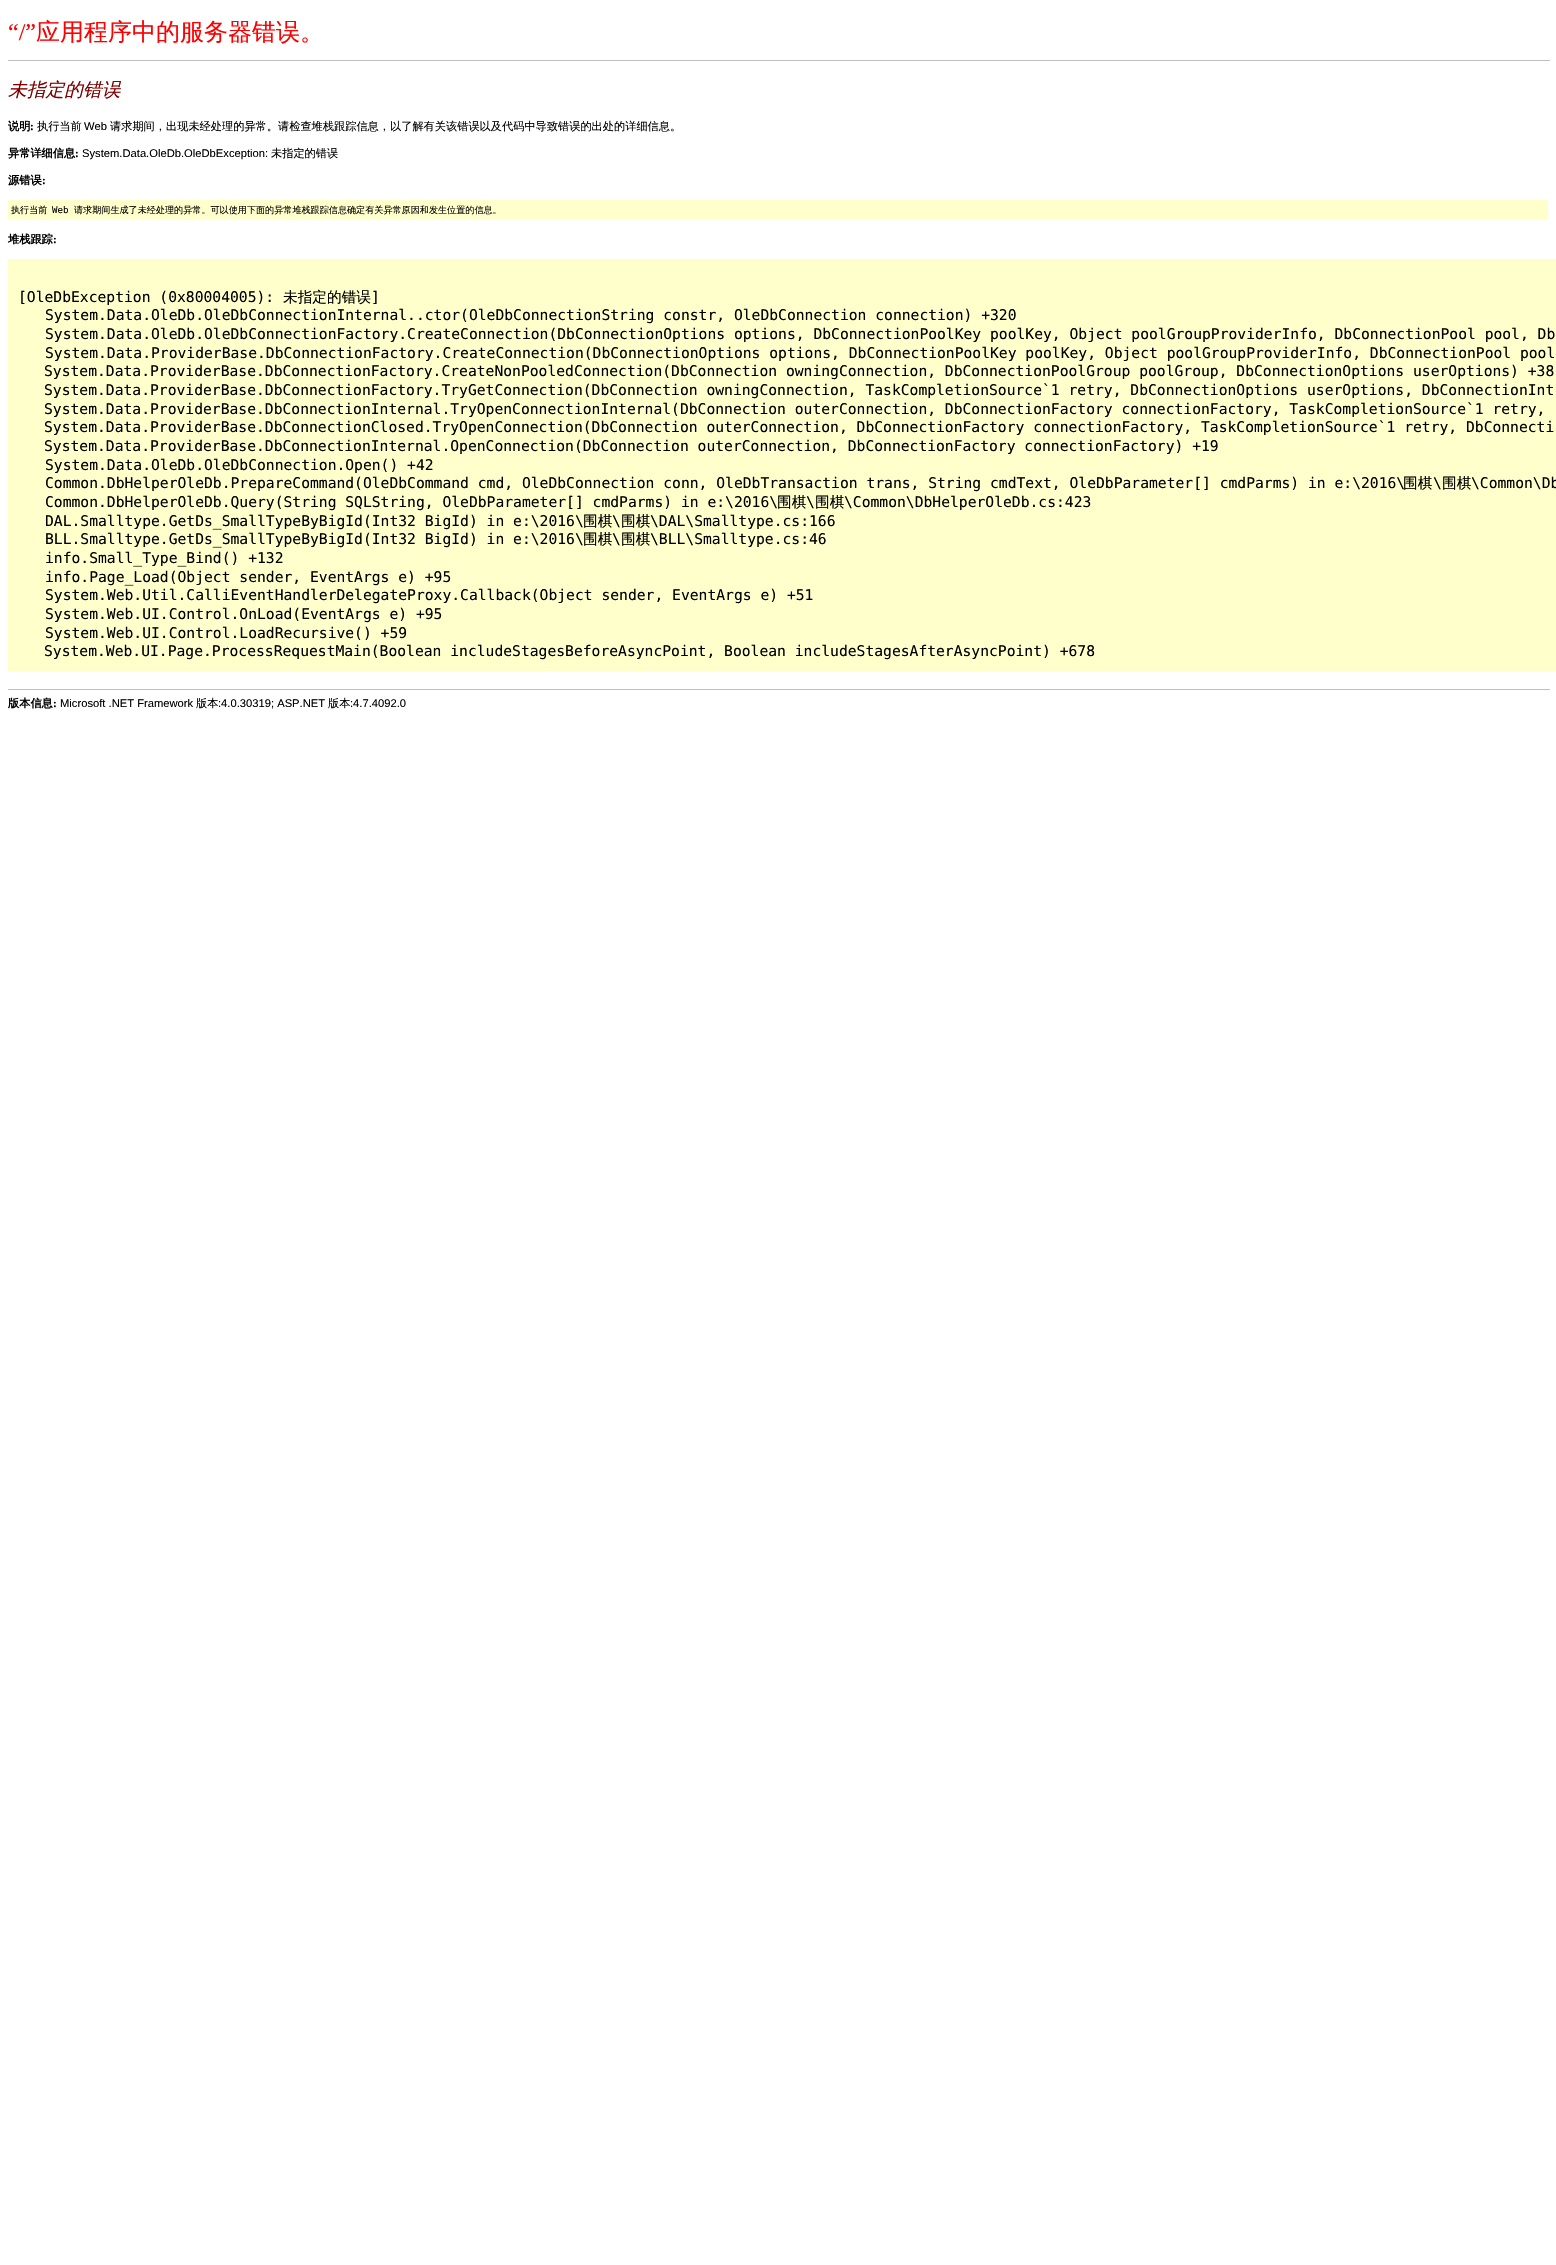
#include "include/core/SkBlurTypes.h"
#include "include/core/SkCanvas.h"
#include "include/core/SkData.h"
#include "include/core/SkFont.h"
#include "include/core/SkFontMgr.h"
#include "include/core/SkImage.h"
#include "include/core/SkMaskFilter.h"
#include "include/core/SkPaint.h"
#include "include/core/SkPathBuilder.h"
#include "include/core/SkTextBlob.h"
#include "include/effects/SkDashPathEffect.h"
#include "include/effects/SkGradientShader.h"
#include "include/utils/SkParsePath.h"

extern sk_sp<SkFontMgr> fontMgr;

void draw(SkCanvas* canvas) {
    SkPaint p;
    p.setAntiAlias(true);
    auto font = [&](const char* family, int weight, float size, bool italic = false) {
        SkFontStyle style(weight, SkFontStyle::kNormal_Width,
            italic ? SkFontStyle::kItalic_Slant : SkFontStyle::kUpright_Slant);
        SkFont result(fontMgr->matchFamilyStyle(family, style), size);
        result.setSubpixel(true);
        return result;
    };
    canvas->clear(0xFFFFFFFF);
    auto font1 = font("Liberation Serif", 400, 24);
    p.setColor(0xFFFF0000);
    canvas->drawString("“/”", 8, 40, font1, p);
    auto font2 = font("WenQuanYi Zen Hei", 500, 24);
    canvas->drawString("应用程序中的服务器错误。", 36, 40, font2, p);
    p.setColor(0xFFC0C0C0);
    canvas->drawRect(SkRect::MakeLTRB(8, 60, 1550, 61), p);
    auto font3 = font("WenQuanYi Zen Hei", 500, 18.75f, true);
    p.setColor(0xFF800000);
    canvas->drawString("未指定的错误", 8, 96, font3, p);
    auto font4 = font("WenQuanYi Zen Hei", 700, 11.2f);
    p.setColor(0xFF000000);
    canvas->drawString("说明", 8, 130, font4, p);
    auto font5 = font("Liberation Serif", 700, 11.2f);
    canvas->drawString(":", 30, 130, font5, p);
    auto font6 = font("WenQuanYi Zen Hei", 500, 11.2f);
    canvas->drawString("执行当前", 37, 130, font6, p);
    auto font7 = font("Liberation Sans", 400, 11.2f);
    canvas->drawString("Web", 84, 130, font7, p);
    canvas->drawString("请求期间，出现未经处理的异常。请检查堆栈跟踪信息，以了解有关该错误以及代码中导致错误的出处的详细信息。", 110, 130, font6, p);
    canvas->drawString("异常详细信息", 8, 157, font4, p);
    canvas->drawString(":", 75, 157, font5, p);
    canvas->drawString("System.Data.OleDb.OleDbException:", 82, 157, font7, p);
    canvas->drawString("未指定的错误", 271, 157, font6, p);
    canvas->drawString("源错误", 8, 184, font4, p);
    canvas->drawString(":", 42, 184, font5, p);
    p.setColor(0xFFFFFFCC);
    canvas->drawRect(SkRect::MakeLTRB(8, 200, 1548, 220), p);
    auto font8 = font("WenQuanYi Zen Hei", 500, 9.1f);
    p.setColor(0xFF000000);
    canvas->drawString("执行当前", 11, 213, font8, p);
    auto font9 = font("DejaVu Sans Mono", 400, 9.1f);
    canvas->drawString("Web", 52, 213, font9, p);
    canvas->drawString("请求期间生成了未经处理的异常。可以使用下面的异常堆栈跟踪信息确定有关异常原因和发生位置的信息。", 74, 213, font8, p);
    canvas->drawString("堆栈跟踪", 8, 243, font4, p);
    canvas->drawString(":", 53, 243, font5, p);
    p.setColor(0xFFFFFFCC);
    canvas->drawRect(SkRect::MakeLTRB(8, 259, 1556, 671), p);
    auto font10 = font("DejaVu Sans Mono", 400, 14.67f);
    p.setColor(0xFF000000);
    canvas->drawString("[OleDbException (0x80004005):", 18, 302, font10, p);
    auto font11 = font("WenQuanYi Zen Hei", 500, 14.67f);
    canvas->drawString("未指定的错误", 283, 302, font11, p);
    {
        const struct { const char* s; float x, y; } items[] = {
            {"]", 371, 302},
            {"System.Data.OleDb.OleDbConnectionInternal..ctor(OleDbConnectionString constr, OleDbConnection connection) +320", 45, 320},
            {"System.Data.OleDb.OleDbConnectionFactory.CreateConnection(DbConnectionOptions options, DbConnectionPoolKey poolKey, Object poolGroupProviderInfo, DbConnectionPool pool, Db", 45, 339},
            {"System.Data.ProviderBase.DbConnectionFactory.CreateConnection(DbConnectionOptions options, DbConnectionPoolKey poolKey, Object poolGroupProviderInfo, DbConnectionPool pool", 45, 358},
            {"System.Data.ProviderBase.DbConnectionFactory.CreateNonPooledConnection(DbConnection owningConnection, DbConnectionPoolGroup poolGroup, DbConnectionOptions userOptions) +38", 44, 376},
            {"System.Data.ProviderBase.DbConnectionFactory.TryGetConnection(DbConnection owningConnection, TaskCompletionSource`1 retry, DbConnectionOptions userOptions, DbConnectionInt", 44, 395},
            {"System.Data.ProviderBase.DbConnectionInternal.TryOpenConnectionInternal(DbConnection outerConnection, DbConnectionFactory connectionFactory, TaskCompletionSource`1 retry,", 44, 414},
            {"System.Data.ProviderBase.DbConnectionClosed.TryOpenConnection(DbConnection outerConnection, DbConnectionFactory connectionFactory, TaskCompletionSource`1 retry, DbConnecti", 44, 432},
            {"System.Data.ProviderBase.DbConnectionInternal.OpenConnection(DbConnection outerConnection, DbConnectionFactory connectionFactory) +19", 44, 451},
            {"System.Data.OleDb.OleDbConnection.Open() +42", 45, 470},
            {"Common.DbHelperOleDb.PrepareCommand(OleDbCommand cmd, OleDbConnection conn, OleDbTransaction trans, String cmdText, OleDbParameter[] cmdParms) in e:\\2016\\", 45, 488},
        };
        for (auto [s, x, y] : items) {
            canvas->drawString(s, x, y, font10, p);
        }
    }
    canvas->drawString("围棋", 1403, 488, font11, p);
    canvas->drawString("\\", 1433, 488, font10, p);
    canvas->drawString("围棋", 1442, 488, font11, p);
    canvas->drawString("\\Common\\Db", 1471, 488, font10, p);
    canvas->drawString("Common.DbHelperOleDb.Query(String SQLString, OleDbParameter[] cmdParms) in e:\\2016\\", 45, 507, font10, p);
    canvas->drawString("围棋", 777, 507, font11, p);
    canvas->drawString("\\", 806, 507, font10, p);
    canvas->drawString("围棋", 815, 507, font11, p);
    canvas->drawString("\\Common\\DbHelperOleDb.cs:423", 844, 507, font10, p);
    canvas->drawString("DAL.Smalltype.GetDs_SmallTypeByBigId(Int32 BigId) in e:\\2016\\", 45, 526, font10, p);
    canvas->drawString("围棋", 583, 526, font11, p);
    canvas->drawString("\\", 612, 526, font10, p);
    canvas->drawString("围棋", 621, 526, font11, p);
    canvas->drawString("\\DAL\\Smalltype.cs:166", 650, 526, font10, p);
    canvas->drawString("BLL.Smalltype.GetDs_SmallTypeByBigId(Int32 BigId) in e:\\2016\\", 45, 544, font10, p);
    canvas->drawString("围棋", 583, 544, font11, p);
    canvas->drawString("\\", 612, 544, font10, p);
    canvas->drawString("围棋", 621, 544, font11, p);
    {
        const struct { const char* s; float x, y; } items[] = {
            {"\\BLL\\Smalltype.cs:46", 650, 544},
            {"info.Small_Type_Bind() +132", 45, 563},
            {"info.Page_Load(Object sender, EventArgs e) +95", 45, 582},
            {"System.Web.Util.CalliEventHandlerDelegateProxy.Callback(Object sender, EventArgs e) +51", 45, 600},
            {"System.Web.UI.Control.OnLoad(EventArgs e) +95", 45, 619},
            {"System.Web.UI.Control.LoadRecursive() +59", 45, 638},
            {"System.Web.UI.Page.ProcessRequestMain(Boolean includeStagesBeforeAsyncPoint, Boolean includeStagesAfterAsyncPoint) +678", 44, 656},
        };
        for (auto [s, x, y] : items) {
            canvas->drawString(s, x, y, font10, p);
        }
    }
    p.setColor(0xFFC0C0C0);
    canvas->drawRect(SkRect::MakeLTRB(8, 689, 1550, 690), p);
    p.setColor(0xFF000000);
    canvas->drawString("版本信息", 8, 707, font4, p);
    canvas->drawString(":", 53, 707, font5, p);
    canvas->drawString("Microsoft .NET Framework", 60, 707, font7, p);
    canvas->drawString("版本", 196, 707, font6, p);
    canvas->drawString(":4.0.30319; ASP.NET", 218, 707, font7, p);
    canvas->drawString("版本", 328, 707, font6, p);
    canvas->drawString(":4.7.4092.0", 350, 707, font7, p);
}
